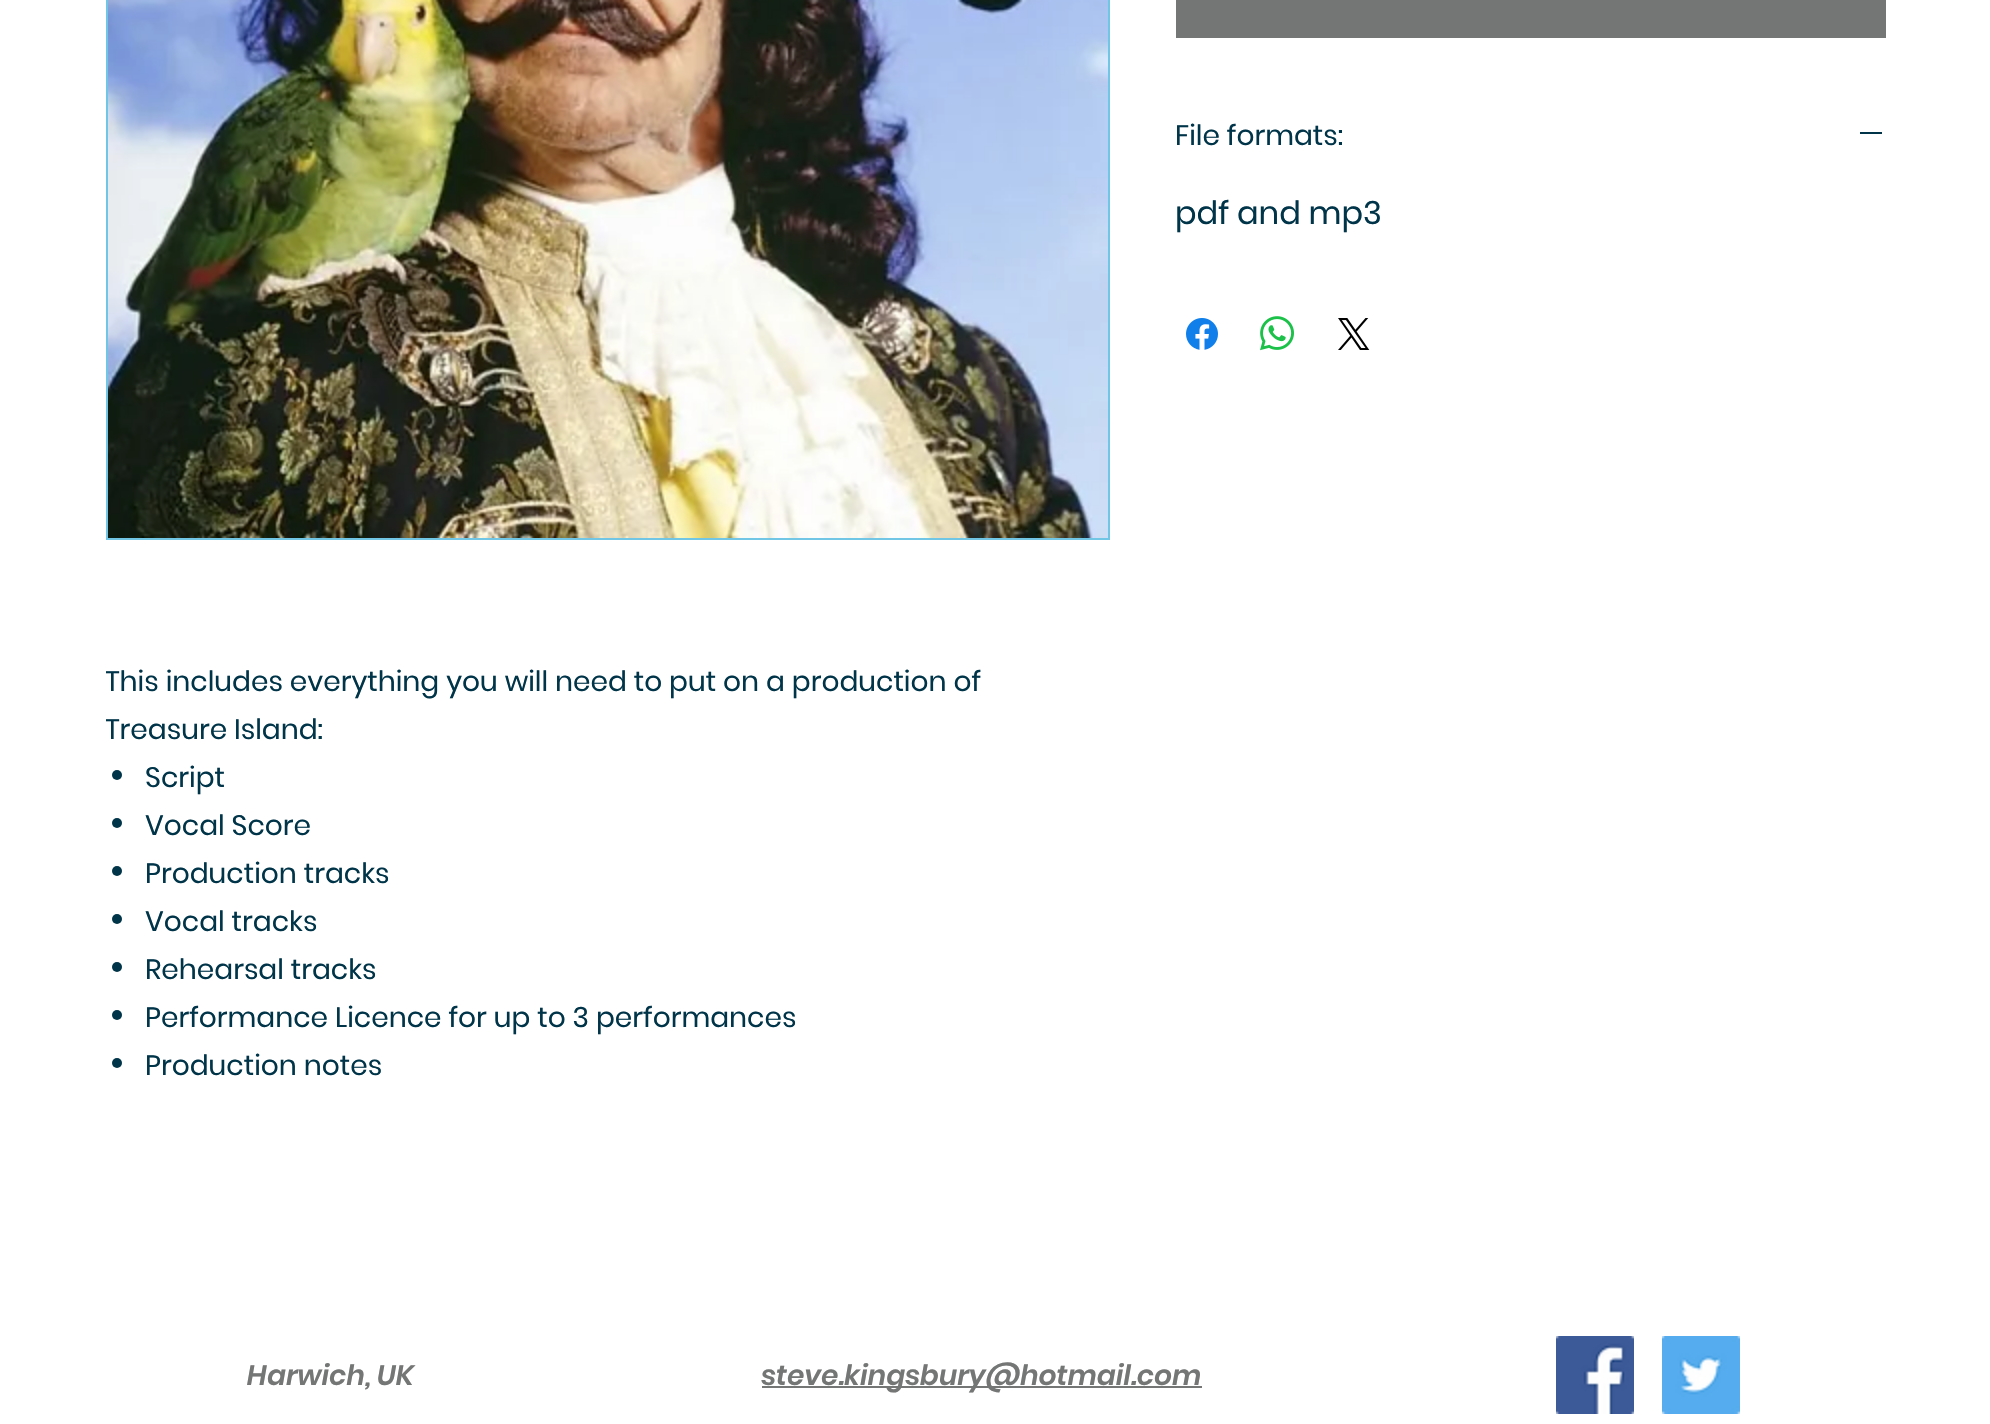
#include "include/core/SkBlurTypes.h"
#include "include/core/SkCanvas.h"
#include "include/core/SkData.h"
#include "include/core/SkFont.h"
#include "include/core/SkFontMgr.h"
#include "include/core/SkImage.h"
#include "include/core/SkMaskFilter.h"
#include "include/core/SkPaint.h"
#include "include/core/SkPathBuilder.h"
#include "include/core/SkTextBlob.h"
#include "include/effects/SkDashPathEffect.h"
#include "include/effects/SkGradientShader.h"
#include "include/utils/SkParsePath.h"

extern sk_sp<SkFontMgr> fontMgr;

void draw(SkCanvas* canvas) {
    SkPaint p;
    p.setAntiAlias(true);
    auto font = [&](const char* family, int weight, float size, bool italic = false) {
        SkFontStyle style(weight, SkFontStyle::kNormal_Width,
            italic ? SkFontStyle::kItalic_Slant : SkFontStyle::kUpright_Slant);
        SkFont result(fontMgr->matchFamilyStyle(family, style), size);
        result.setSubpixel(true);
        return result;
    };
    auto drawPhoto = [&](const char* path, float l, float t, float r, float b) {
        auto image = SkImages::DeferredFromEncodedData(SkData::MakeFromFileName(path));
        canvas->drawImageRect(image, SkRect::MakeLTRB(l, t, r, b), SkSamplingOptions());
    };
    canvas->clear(0xFFFFFFFF);
    p.setColor(0xFF747575);
    canvas->drawRect(SkRect::MakeLTRB(1176, 0, 1886, 38), p);
    auto font1 = font("Poppins", 400, 28);
    p.setColor(0xFF003448);
    canvas->drawString("File formats:", 1175, 145, font1, p);
    canvas->drawRect(SkRect::MakeLTRB(1860, 132, 1882, 134), p);
    auto font2 = font("Poppins", 400, 32);
    canvas->drawString("pdf and mp3", 1175, 224, font2, p);
    drawPhoto("media/1.png", 1186, 318, 1218, 350);
    drawPhoto("media/2.png", 1260, 316, 1294, 351);
    drawPhoto("media/3.png", 1338, 318, 1370, 350);
    p.setStyle(SkPaint::kStroke_Style);
    p.setStrokeWidth(2);
    p.setColor(0xFF72C6E5);
    canvas->drawRect(SkRect::MakeLTRB(107, -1, 1109, 539), p);
    drawPhoto("media/4.png", 108, 0, 1108, 538);
    canvas->save();
    canvas->clipRect(SkRect::MakeLTRB(106, 656, 1106, 1088));
    p.setStyle(SkPaint::kFill_Style);
    p.setColor(0xFF003448);
    canvas->drawString("This includes everything you will need to put on a production of", 105, 691, font1, p);
    canvas->drawString("Treasure Island:", 105, 739, font1, p);
    canvas->restore();
    canvas->drawCircle(117, 775, 5, p);
    canvas->drawString("Script", 145, 787, font1, p);
    canvas->drawCircle(117, 823, 5, p);
    canvas->drawString("Vocal Score", 145, 835, font1, p);
    canvas->drawCircle(117, 871, 5, p);
    canvas->drawString("Production tracks", 145, 883, font1, p);
    canvas->drawCircle(117, 919, 5, p);
    canvas->drawString("Vocal tracks", 145, 931, font1, p);
    canvas->drawCircle(117, 967, 5, p);
    canvas->drawString("Rehearsal tracks", 145, 979, font1, p);
    canvas->drawCircle(117, 1015, 5, p);
    canvas->drawString("Performance Licence for up to 3 performances", 145, 1027, font1, p);
    canvas->drawCircle(117, 1063, 5, p);
    canvas->drawString("Production notes", 145, 1075, font1, p);
    auto font3 = font("Poppins", 600, 28, true);
    p.setColor(0xFF747575);
    canvas->drawString("Harwich, UK", 247, 1385, font3, p);
    canvas->drawRect(SkRect::MakeLTRB(762, 1386, 1202, 1388), p);
    canvas->drawString("steve.kingsbury@hotmail.com", 761, 1385, font3, p);
    drawPhoto("media/5.png", 1556, 1336, 1634, 1414);
    drawPhoto("media/6.png", 1662, 1336, 1740, 1414);
}
